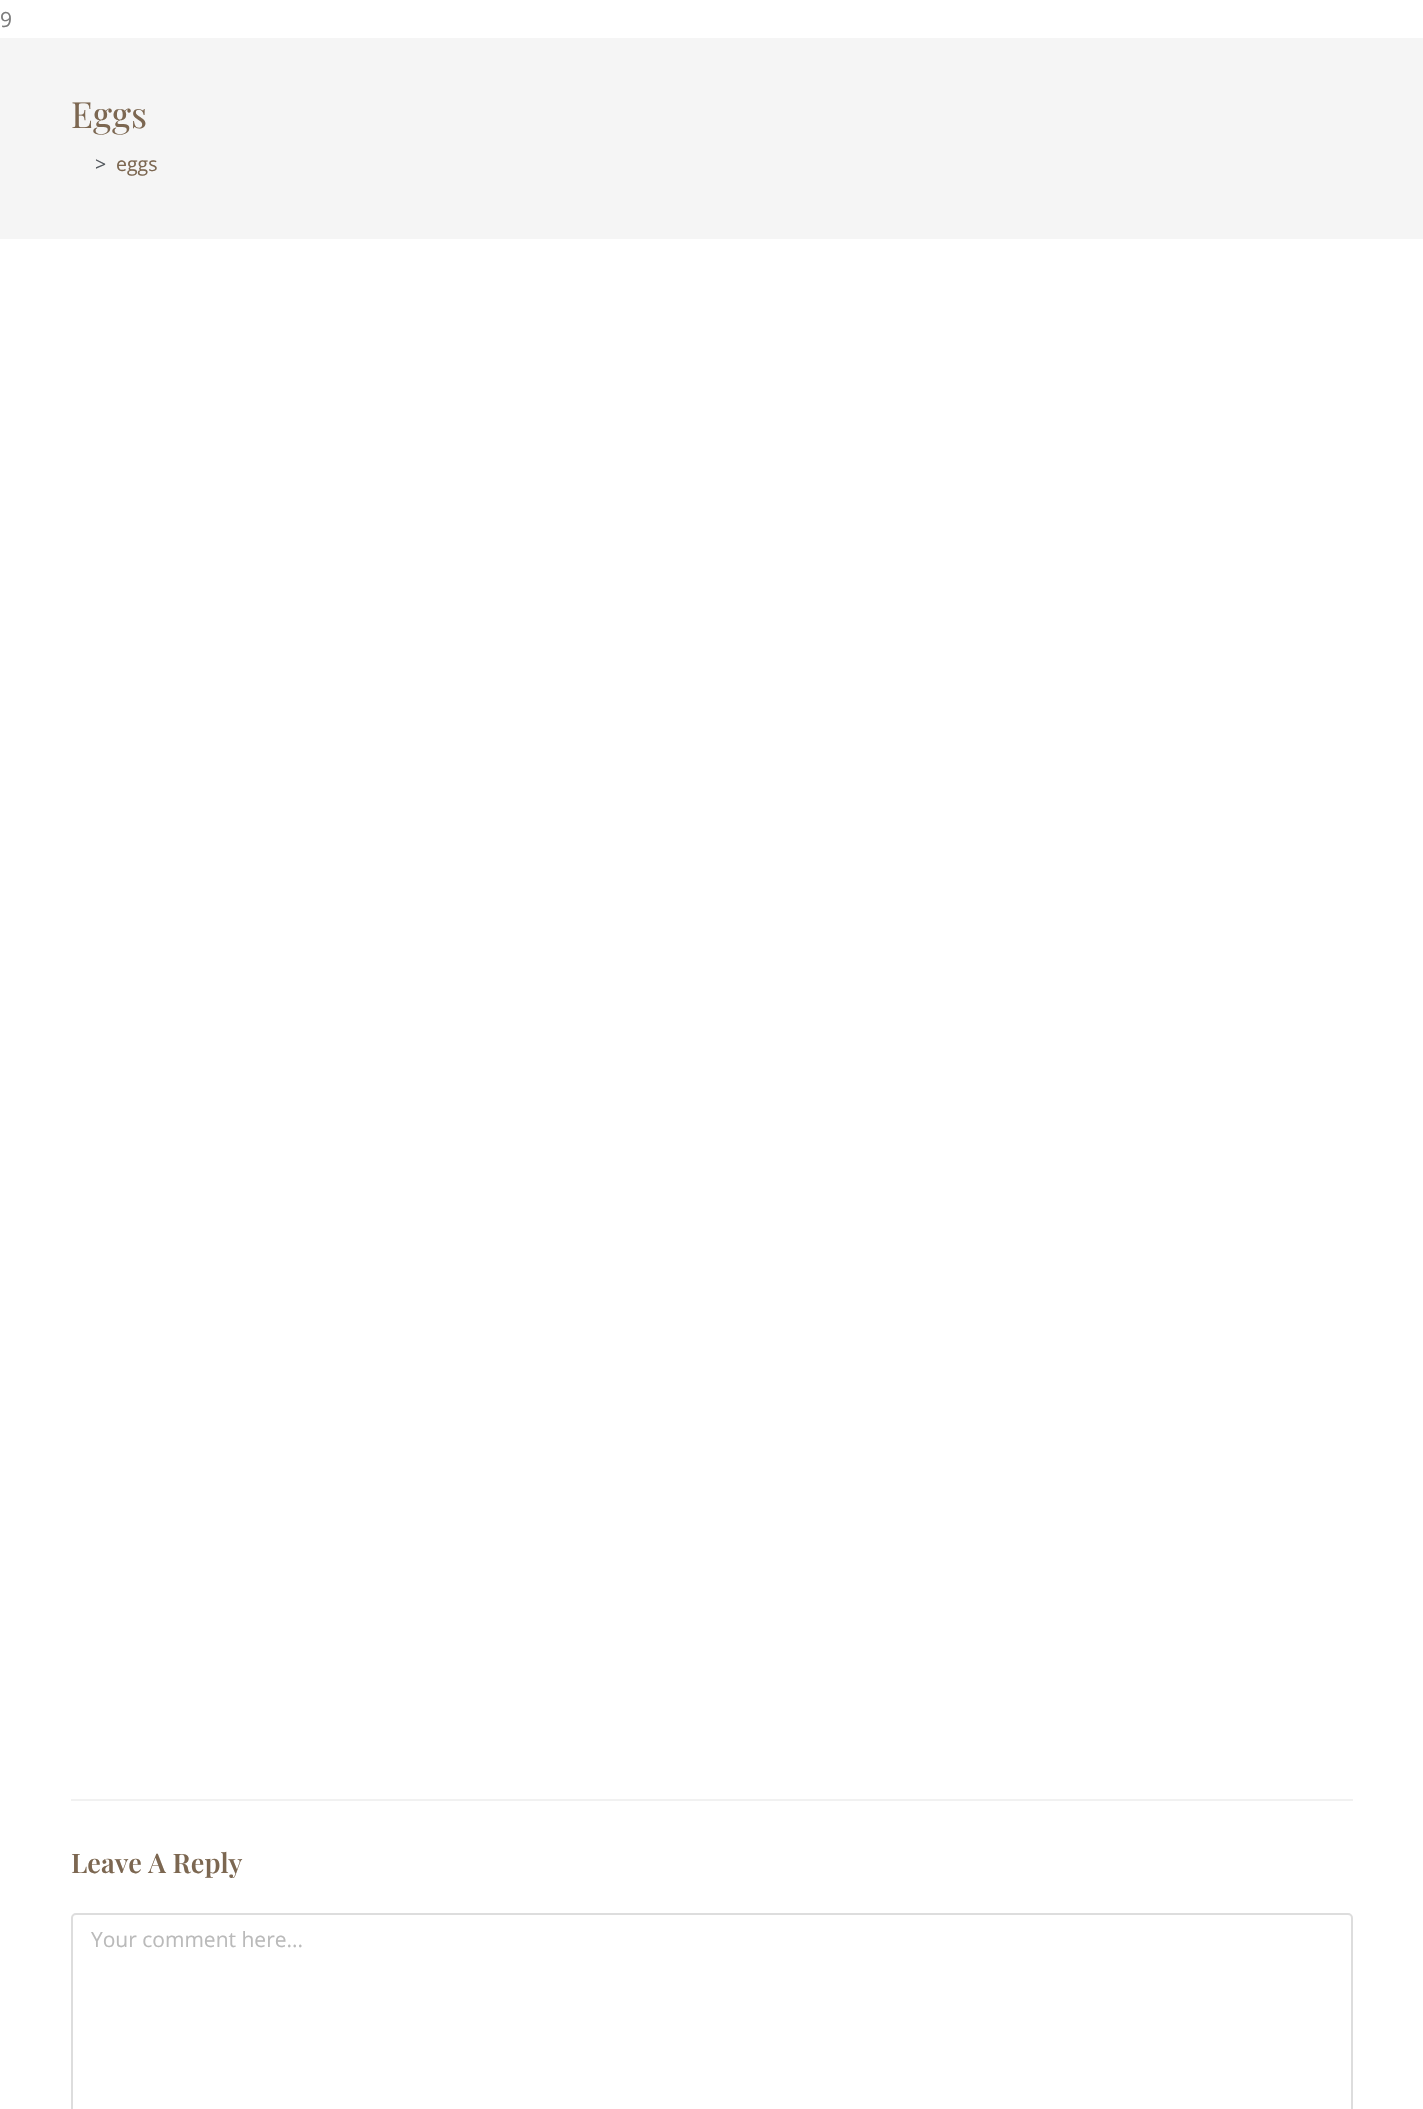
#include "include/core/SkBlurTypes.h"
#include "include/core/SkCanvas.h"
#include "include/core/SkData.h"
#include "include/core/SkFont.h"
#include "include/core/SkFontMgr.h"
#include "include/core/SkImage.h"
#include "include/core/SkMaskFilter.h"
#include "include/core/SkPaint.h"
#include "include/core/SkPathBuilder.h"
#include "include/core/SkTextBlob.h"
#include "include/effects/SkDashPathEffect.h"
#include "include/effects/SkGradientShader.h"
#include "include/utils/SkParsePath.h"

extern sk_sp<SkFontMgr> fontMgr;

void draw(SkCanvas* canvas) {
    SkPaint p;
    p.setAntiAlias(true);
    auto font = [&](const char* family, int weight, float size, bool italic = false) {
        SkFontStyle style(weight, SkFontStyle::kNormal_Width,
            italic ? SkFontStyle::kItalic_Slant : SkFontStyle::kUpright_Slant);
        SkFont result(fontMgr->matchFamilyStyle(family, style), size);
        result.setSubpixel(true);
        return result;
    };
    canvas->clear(0xFFFFFFFF);
    auto font1 = font("Open Sans", 400, 21);
    p.setColor(0xFF7C7C7C);
    canvas->drawString("9", 0, 27, font1, p);
    p.setColor(0xFFF5F5F5);
    canvas->drawRect(SkRect::MakeLTRB(0, 38, 1423, 239), p);
    auto font2 = font("Playfair Display", 400, 36);
    p.setColor(0xFF7C6751);
    canvas->drawString("Eggs", 71, 128, font2, p);
    auto font3 = font("Open Sans", 400, 19.5f);
    p.setColor(0xFF54595F);
    canvas->drawString(">", 95, 171, font3, p);
    p.setColor(0xFF7C6751);
    canvas->drawString("eggs", 116, 171, font3, p);
    p.setColor(0xFFF1F1F1);
    canvas->drawRect(SkRect::MakeLTRB(71, 1799, 1353, 1801), p);
    auto font4 = font("Playfair Display", 600, 27);
    p.setColor(0xFF7C6751);
    canvas->drawString("Leave A Reply", 71, 1873, font4, p);
    p.setStyle(SkPaint::kStroke_Style);
    p.setStrokeWidth(2);
    p.setColor(0xFFDDDDDD);
    canvas->drawRoundRect(SkRect::MakeLTRB(72, 1914, 1352, 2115), 4, 4, p);
    p.setStyle(SkPaint::kFill_Style);
    p.setColor(0xFFBABABA);
    canvas->drawString("Your comment here...", 91, 1947, font1, p);
}
